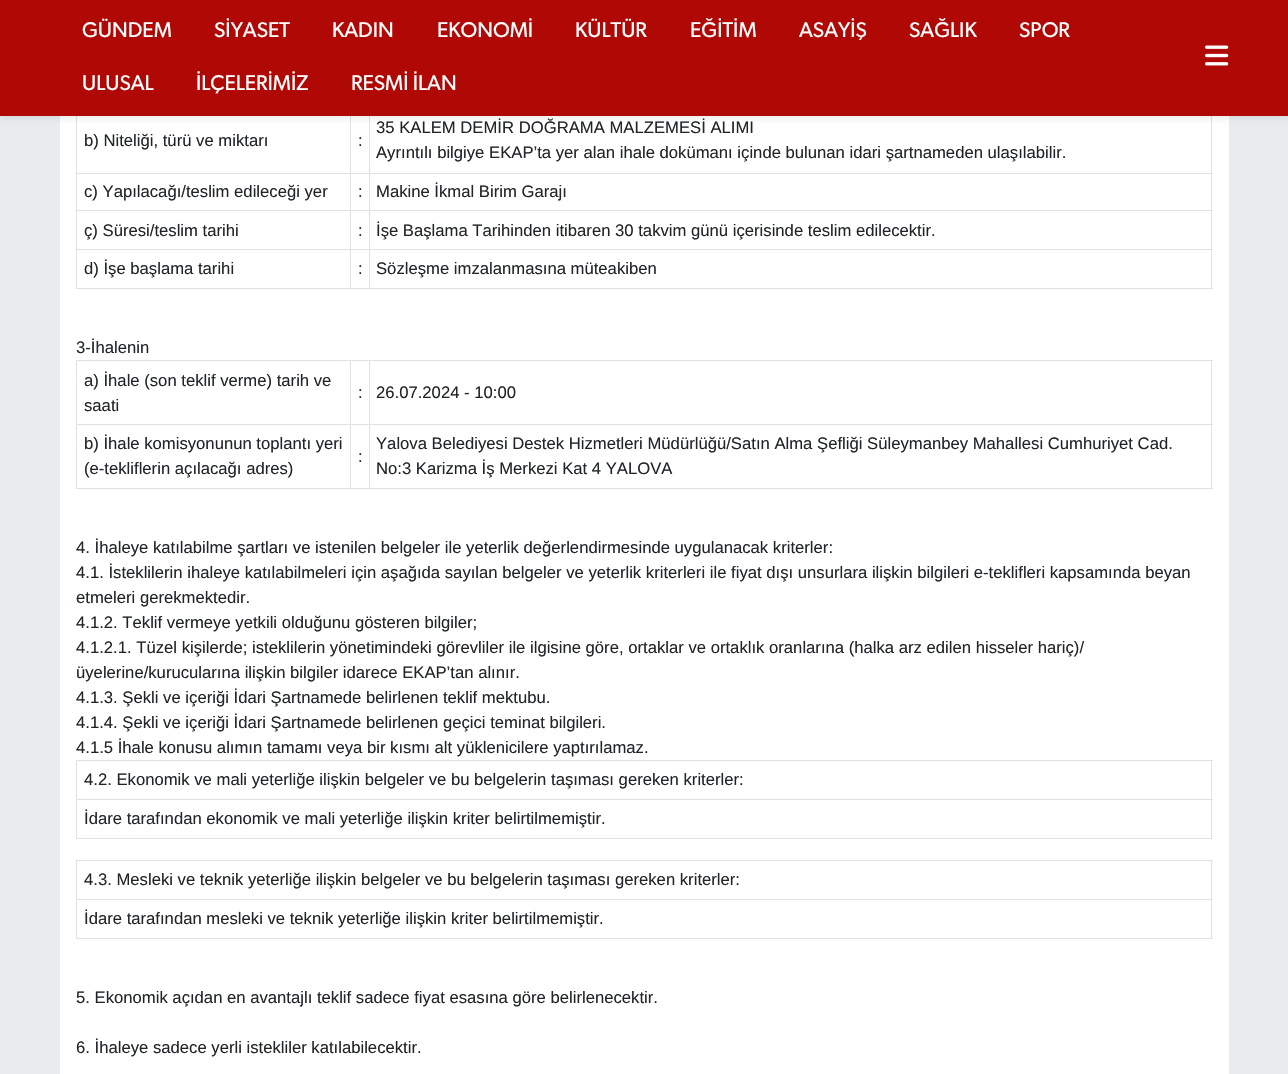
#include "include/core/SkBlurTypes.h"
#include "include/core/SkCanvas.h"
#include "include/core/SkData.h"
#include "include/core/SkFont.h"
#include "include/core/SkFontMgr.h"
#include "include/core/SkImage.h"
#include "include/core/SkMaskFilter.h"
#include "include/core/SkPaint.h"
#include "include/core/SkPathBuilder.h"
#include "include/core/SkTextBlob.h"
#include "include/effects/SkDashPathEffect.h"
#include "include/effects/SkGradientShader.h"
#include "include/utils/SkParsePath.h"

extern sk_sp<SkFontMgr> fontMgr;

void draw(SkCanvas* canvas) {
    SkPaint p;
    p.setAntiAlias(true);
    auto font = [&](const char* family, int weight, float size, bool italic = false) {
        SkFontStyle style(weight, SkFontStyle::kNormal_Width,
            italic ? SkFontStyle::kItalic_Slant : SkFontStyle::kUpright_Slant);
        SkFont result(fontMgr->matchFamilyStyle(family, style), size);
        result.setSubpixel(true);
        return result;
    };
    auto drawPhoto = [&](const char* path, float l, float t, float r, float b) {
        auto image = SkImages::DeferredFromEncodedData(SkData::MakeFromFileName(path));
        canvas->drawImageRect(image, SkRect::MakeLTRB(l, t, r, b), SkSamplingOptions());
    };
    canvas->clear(0xFFE9ECEF);
    {
        const struct { float l, t, r, b; SkColor color; } items[] = {
            {60, 116, 1229, 1074, 0xFFFFFFFF},
            {1211, 116, 1212, 289, 0xFFDEE2E6},
            {76, 288, 1213, 289, 0xFFDEE2E6},
            {76, 116, 77, 289, 0xFFDEE2E6},
            {76, 173, 1213, 174, 0xFFDEE2E6},
            {76, 210, 1213, 211, 0xFFDEE2E6},
            {76, 249, 1213, 250, 0xFFDEE2E6},
            {350, 109, 351, 289, 0xFFDEE2E6},
            {369, 109, 370, 289, 0xFFDEE2E6},
        };
        for (auto [l, t, r, b, color] : items) {
            p.setColor(color);
            canvas->drawRect(SkRect::MakeLTRB(l, t, r, b), p);
        }
    }
    p.setColor(0x12000000);
    p.setMaskFilter(SkMaskFilter::MakeBlur(kNormal_SkBlurStyle, 2.5f));
    canvas->drawRect(SkRect::MakeLTRB(0, 3, 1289, 119), p);
    p.setMaskFilter(nullptr);
    p.setColor(0xFFB00805);
    canvas->drawRect(SkRect::MakeLTRB(0, 0, 1288, 116), p);
    auto font1 = font("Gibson", 400, 21.25f);
    p.setColor(0xFFFFFFFF);
    {
        const struct { const char* s; float x, y; } items[] = {
            {"GÜNDEM", 82, 37},
            {"SİYASET", 214, 37},
            {"KADIN", 332, 37},
            {"EKONOMİ", 437, 37},
            {"KÜLTÜR", 575, 37},
            {"EĞİTİM", 690, 37},
            {"ASAYİŞ", 799, 37},
            {"SAĞLIK", 909, 37},
            {"SPOR", 1019, 37},
            {"ULUSAL", 82, 90},
            {"İLÇELERİMİZ", 196, 90},
            {"RESMİ İLAN", 351, 90},
        };
        for (auto [s, x, y] : items) {
            canvas->drawString(s, x, y, font1, p);
        }
    }
    drawPhoto("media/1.png", 1205, 45, 1229, 66);
    auto font2 = font("Liberation Sans", 400, 16.67f);
    p.setColor(0xFF212529);
    {
        const struct { const char* s; float x, y; } items[] = {
            {"b) Niteliği, türü ve miktarı", 84, 146},
            {":", 358, 146},
            {"35 KALEM DEMİR DOĞRAMA MALZEMESİ ALIMI", 376, 133},
            {"Ayrıntılı bilgiye EKAP’ta yer alan ihale dokümanı içinde bulunan idari şartnameden ulaşılabilir.", 376, 158},
            {"c) Yapılacağı/teslim edileceği yer", 84, 197},
            {":", 358, 197},
            {"Makine İkmal Birim Garajı", 376, 197},
            {"ç) Süresi/teslim tarihi", 84, 236},
            {":", 358, 236},
            {"İşe Başlama Tarihinden itibaren 30 takvim günü içerisinde teslim edilecektir.", 376, 236},
            {"d) İşe başlama tarihi", 84, 274},
            {":", 358, 274},
            {"Sözleşme imzalanmasına müteakiben", 376, 274},
            {"3-İhalenin", 76, 353},
        };
        for (auto [s, x, y] : items) {
            canvas->drawString(s, x, y, font2, p);
        }
    }
    {
        const struct { float l, t, r, b; SkColor color; } items[] = {
            {76, 360, 1213, 361, 0xFFDEE2E6},
            {1211, 360, 1212, 489, 0xFFDEE2E6},
            {76, 488, 1213, 489, 0xFFDEE2E6},
            {76, 360, 77, 489, 0xFFDEE2E6},
        };
        for (auto [l, t, r, b, color] : items) {
            p.setColor(color);
            canvas->drawRect(SkRect::MakeLTRB(l, t, r, b), p);
        }
    }
    p.setColor(0xFF212529);
    {
        const struct { const char* s; float x, y; } items[] = {
            {"a) İhale (son teklif verme) tarih ve", 84, 386},
            {"saati", 84, 411},
            {":", 358, 398},
            {"26.07.2024 - 10:00", 376, 398},
        };
        for (auto [s, x, y] : items) {
            canvas->drawString(s, x, y, font2, p);
        }
    }
    p.setColor(0xFFDEE2E6);
    canvas->drawRect(SkRect::MakeLTRB(76, 424, 1213, 425), p);
    p.setColor(0xFF212529);
    canvas->drawString("b) İhale komisyonunun toplantı yeri", 84, 449, font2, p);
    canvas->drawString("(e-tekliflerin açılacağı adres)", 84, 474, font2, p);
    p.setColor(0xFFDEE2E6);
    canvas->drawRect(SkRect::MakeLTRB(350, 360, 351, 489), p);
    p.setColor(0xFF212529);
    canvas->drawString(":", 358, 462, font2, p);
    p.setColor(0xFFDEE2E6);
    canvas->drawRect(SkRect::MakeLTRB(369, 360, 370, 489), p);
    p.setColor(0xFF212529);
    {
        const struct { const char* s; float x, y; } items[] = {
            {"Yalova Belediyesi Destek Hizmetleri Müdürlüğü/Satın Alma Şefliği Süleymanbey Mahallesi Cumhuriyet Cad.", 376, 449},
            {"No:3 Karizma İş Merkezi Kat 4 YALOVA", 376, 474},
            {"4. İhaleye katılabilme şartları ve istenilen belgeler ile yeterlik değerlendirmesinde uygulanacak kriterler:", 76, 553},
            {"4.1. İsteklilerin ihaleye katılabilmeleri için aşağıda sayılan belgeler ve yeterlik kriterleri ile fiyat dışı unsurlara ilişkin bilgileri e-teklifleri kapsamında beyan", 76, 578},
            {"etmeleri gerekmektedir.", 76, 603},
            {"4.1.2. Teklif vermeye yetkili olduğunu gösteren bilgiler;", 76, 628},
            {"4.1.2.1. Tüzel kişilerde; isteklilerin yönetimindeki görevliler ile ilgisine göre, ortaklar ve ortaklık oranlarına (halka arz edilen hisseler hariç)/", 76, 653},
            {"üyelerine/kurucularına ilişkin bilgiler idarece EKAP’tan alınır.", 76, 678},
            {"4.1.3. Şekli ve içeriği İdari Şartnamede belirlenen teklif mektubu.", 76, 703},
            {"4.1.4. Şekli ve içeriği İdari Şartnamede belirlenen geçici teminat bilgileri.", 76, 728},
            {"4.1.5 İhale konusu alımın tamamı veya bir kısmı alt yüklenicilere yaptırılamaz.", 76, 753},
        };
        for (auto [s, x, y] : items) {
            canvas->drawString(s, x, y, font2, p);
        }
    }
    {
        const struct { float l, t, r, b; SkColor color; } items[] = {
            {76, 760, 1213, 761, 0xFFDEE2E6},
            {1211, 760, 1212, 839, 0xFFDEE2E6},
            {76, 838, 1213, 839, 0xFFDEE2E6},
            {76, 760, 77, 839, 0xFFDEE2E6},
        };
        for (auto [l, t, r, b, color] : items) {
            p.setColor(color);
            canvas->drawRect(SkRect::MakeLTRB(l, t, r, b), p);
        }
    }
    p.setColor(0xFF212529);
    canvas->drawString("4.2. Ekonomik ve mali yeterliğe ilişkin belgeler ve bu belgelerin taşıması gereken kriterler:", 84, 785, font2, p);
    p.setColor(0xFFDEE2E6);
    canvas->drawRect(SkRect::MakeLTRB(76, 799, 1213, 800), p);
    p.setColor(0xFF212529);
    canvas->drawString("İdare tarafından ekonomik ve mali yeterliğe ilişkin kriter belirtilmemiştir.", 84, 824, font2, p);
    {
        const struct { float l, t, r, b; SkColor color; } items[] = {
            {76, 860, 1213, 861, 0xFFDEE2E6},
            {1211, 860, 1212, 939, 0xFFDEE2E6},
            {76, 938, 1213, 939, 0xFFDEE2E6},
            {76, 860, 77, 939, 0xFFDEE2E6},
        };
        for (auto [l, t, r, b, color] : items) {
            p.setColor(color);
            canvas->drawRect(SkRect::MakeLTRB(l, t, r, b), p);
        }
    }
    p.setColor(0xFF212529);
    canvas->drawString("4.3. Mesleki ve teknik yeterliğe ilişkin belgeler ve bu belgelerin taşıması gereken kriterler:", 84, 885, font2, p);
    p.setColor(0xFFDEE2E6);
    canvas->drawRect(SkRect::MakeLTRB(76, 899, 1213, 900), p);
    p.setColor(0xFF212529);
    {
        const struct { const char* s; float x, y; } items[] = {
            {"İdare tarafından mesleki ve teknik yeterliğe ilişkin kriter belirtilmemiştir.", 84, 924},
            {"5. Ekonomik açıdan en avantajlı teklif sadece fiyat esasına göre belirlenecektir.", 76, 1003},
            {"6. İhaleye sadece yerli istekliler katılabilecektir.", 76, 1053},
        };
        for (auto [s, x, y] : items) {
            canvas->drawString(s, x, y, font2, p);
        }
    }
}
